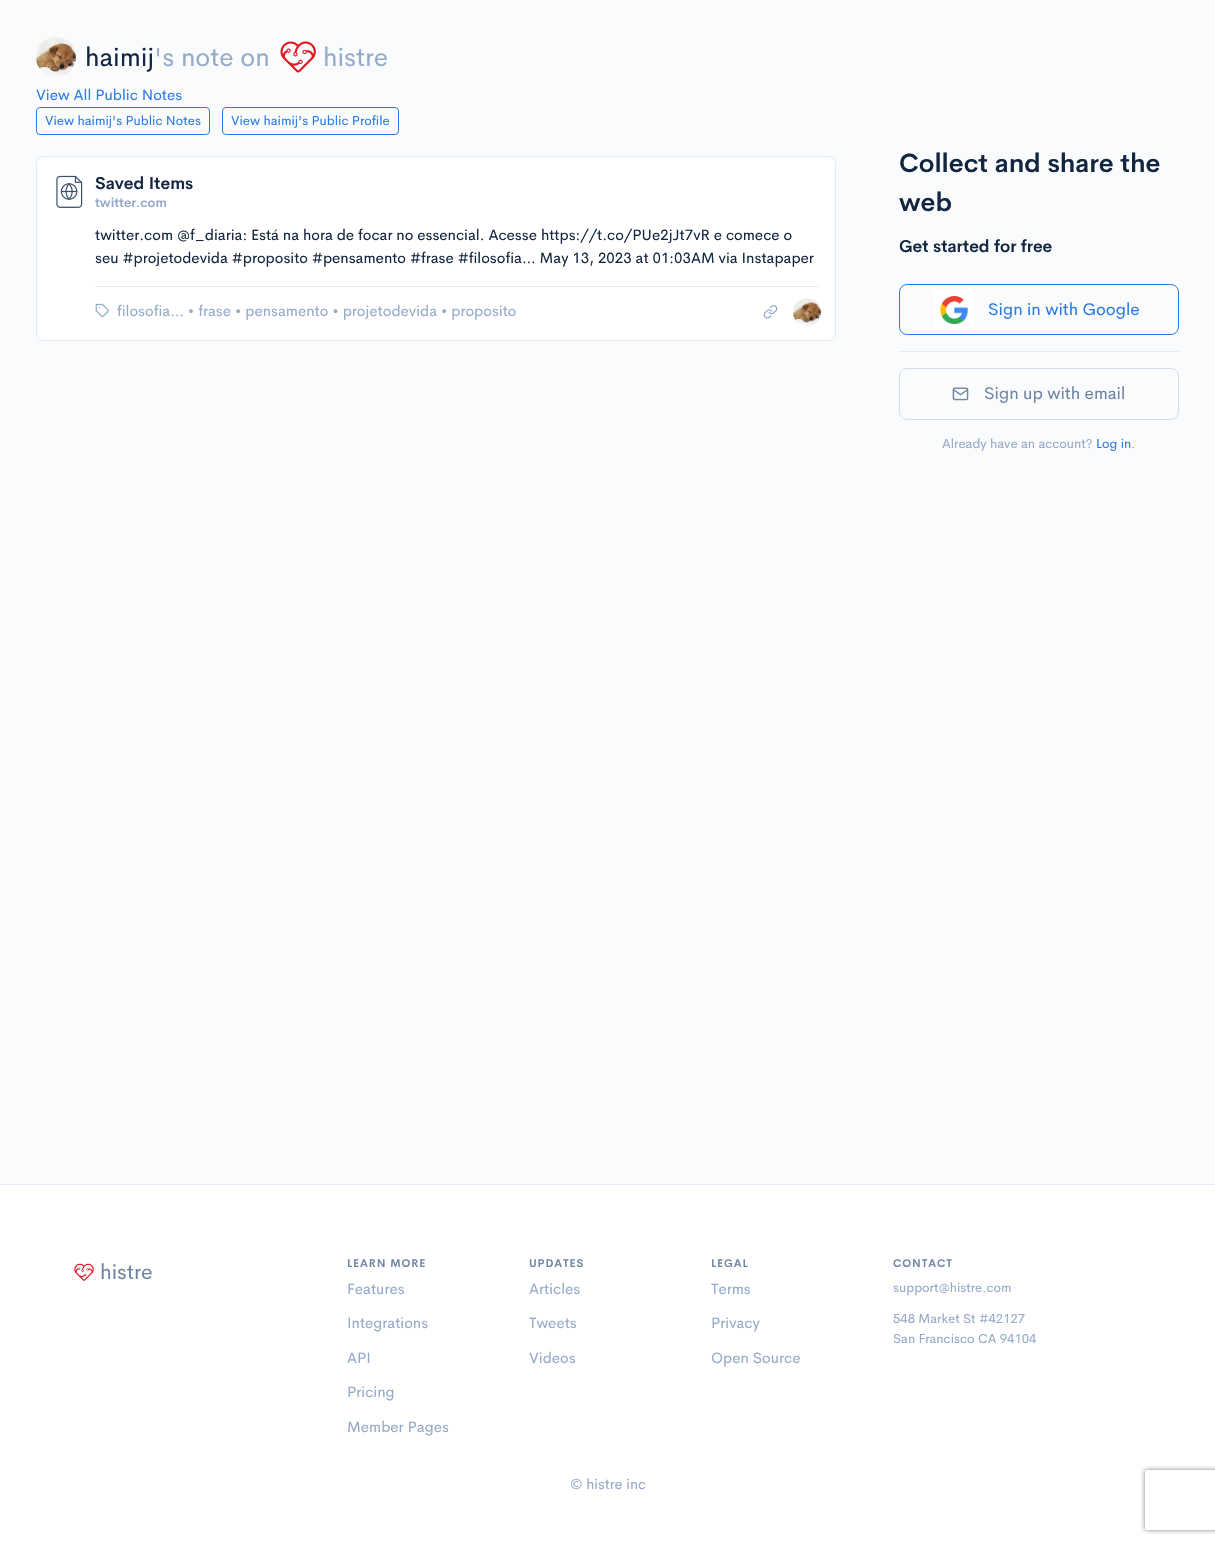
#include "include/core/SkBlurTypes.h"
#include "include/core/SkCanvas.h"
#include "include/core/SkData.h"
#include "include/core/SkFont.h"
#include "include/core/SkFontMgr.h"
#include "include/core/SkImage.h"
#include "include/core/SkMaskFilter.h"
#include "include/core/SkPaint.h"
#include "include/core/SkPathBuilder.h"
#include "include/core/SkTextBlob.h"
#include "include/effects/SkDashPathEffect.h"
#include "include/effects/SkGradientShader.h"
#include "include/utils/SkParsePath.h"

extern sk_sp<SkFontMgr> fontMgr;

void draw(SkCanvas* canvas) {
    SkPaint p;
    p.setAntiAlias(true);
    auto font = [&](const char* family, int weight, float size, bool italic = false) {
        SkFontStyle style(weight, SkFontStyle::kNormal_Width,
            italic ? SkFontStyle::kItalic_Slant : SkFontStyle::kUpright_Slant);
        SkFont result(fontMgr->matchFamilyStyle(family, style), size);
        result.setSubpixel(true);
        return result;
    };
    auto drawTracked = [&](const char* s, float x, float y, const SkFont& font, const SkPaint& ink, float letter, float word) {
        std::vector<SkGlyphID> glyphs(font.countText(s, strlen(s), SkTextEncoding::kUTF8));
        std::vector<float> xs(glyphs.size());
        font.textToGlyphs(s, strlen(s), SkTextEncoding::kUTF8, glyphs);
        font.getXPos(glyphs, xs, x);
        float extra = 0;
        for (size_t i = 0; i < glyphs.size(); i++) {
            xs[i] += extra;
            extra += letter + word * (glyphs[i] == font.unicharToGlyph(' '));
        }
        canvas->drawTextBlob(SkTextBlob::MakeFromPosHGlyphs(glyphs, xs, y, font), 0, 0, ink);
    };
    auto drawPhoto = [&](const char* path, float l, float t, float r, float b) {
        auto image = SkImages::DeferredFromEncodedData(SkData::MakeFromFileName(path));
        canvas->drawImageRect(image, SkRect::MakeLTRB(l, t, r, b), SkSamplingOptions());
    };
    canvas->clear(0xFFF9FBFD);
    drawPhoto("media/1.png", 36, 37, 76, 77);
    auto font1 = font("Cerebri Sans", 400, 26);
    p.setColor(0xFF12263F);
    canvas->drawString("haimij", 85, 66, font1, p);
    p.setColor(0xFF95AAC9);
    canvas->drawString("'s note on", 154, 66, font1, p);
    drawPhoto("media/2.png", 280, 41, 316, 73);
    canvas->drawString("histre", 323, 66, font1, p);
    auto font2 = font("Cerebri Sans", 400, 15);
    p.setColor(0xFF2C7BE5);
    canvas->drawString("View All Public Notes", 36, 100, font2, p);
    p.setStyle(SkPaint::kStroke_Style);
    p.setStrokeWidth(1);
    canvas->drawRoundRect(SkRect::MakeLTRB(36.5f, 107.5f, 209.5f, 134.5f), 3.5f, 3.5f, p);
    auto font3 = font("Cerebri Sans", 400, 13);
    p.setStyle(SkPaint::kFill_Style);
    canvas->drawString("View haimij's Public Notes", 45, 125, font3, p);
    p.setStyle(SkPaint::kStroke_Style);
    canvas->drawRoundRect(SkRect::MakeLTRB(222.5f, 107.5f, 398.5f, 134.5f), 3.5f, 3.5f, p);
    p.setStyle(SkPaint::kFill_Style);
    canvas->drawString("View haimij's Public Profile", 231, 125, font3, p);
    p.setColor(0xFFFFFFFF);
    canvas->drawRoundRect(SkRect::MakeLTRB(36.5f, 156.5f, 835.5f, 340.5f), 7.5f, 7.5f, p);
    p.setStyle(SkPaint::kStroke_Style);
    p.setColor(0xFFE3EBF6);
    canvas->drawRoundRect(SkRect::MakeLTRB(36.5f, 156.5f, 835.5f, 340.5f), 7.5f, 7.5f, p);
    drawPhoto("media/3.png", 56, 175, 83, 208);
    auto font4 = font("Cerebri Sans", 600, 17);
    p.setStyle(SkPaint::kFill_Style);
    p.setColor(0xFF12263F);
    canvas->drawString("Saved Items", 95, 189, font4, p);
    auto font5 = font("Cerebri Sans", 600, 13);
    p.setColor(0xFF95AAC9);
    canvas->drawString("twitter.com", 95, 207, font5, p);
    p.setColor(0xFF12263F);
    canvas->drawString("twitter.com @f_diaria: Está na hora de focar no essencial. Acesse https://t.co/PUe2jJt7vR e comece o", 95, 240, font2, p);
    canvas->drawString("seu #projetodevida #proposito #pensamento #frase #filosofia… May 13, 2023 at 01:03AM via Instapaper", 95, 263, font2, p);
    p.setColor(0xFFE3EBF6);
    canvas->drawRect(SkRect::MakeLTRB(95, 286, 819, 287), p);
    drawPhoto("media/4.png", 95, 303, 109, 318);
    p.setColor(0xFF95AAC9);
    canvas->drawString("filosofia… • frase • pensamento • projetodevida • proposito", 117, 316, font2, p);
    drawPhoto("media/5.png", 763, 305, 778, 319);
    drawPhoto("media/6.png", 793, 298, 821, 326);
    auto font6 = font("Cerebri Sans", 600, 26);
    p.setColor(0xFF12263F);
    canvas->drawString("Collect and share the", 899, 172, font6, p);
    canvas->drawString("web", 899, 211, font6, p);
    canvas->drawString("Get started for free", 899, 252, font4, p);
    p.setStyle(SkPaint::kStroke_Style);
    p.setColor(0xFF2C7BE5);
    canvas->drawRoundRect(SkRect::MakeLTRB(899.5f, 284.5f, 1178.5f, 334.5f), 7.5f, 7.5f, p);
    p.setStyle(SkPaint::kFill_Style);
    p.setColor(0xFFFFFFFF);
    canvas->drawRoundRect(SkRect::MakeLTRB(934, 290, 974, 330), 4, 4, p);
    drawPhoto("media/7.png", 940, 296, 968, 324);
    auto font7 = font("Cerebri Sans", 400, 17);
    p.setColor(0xFF2C7BE5);
    canvas->drawString("Sign in with Google", 988, 315, font7, p);
    p.setColor(0xFFE3EBF6);
    canvas->drawRect(SkRect::MakeLTRB(899, 351, 1179, 352), p);
    p.setStyle(SkPaint::kStroke_Style);
    p.setColor(0xFFD2DDEC);
    canvas->drawRoundRect(SkRect::MakeLTRB(899.5f, 368.5f, 1178.5f, 419.5f), 7.5f, 7.5f, p);
    drawPhoto("media/8.png", 952, 387, 969, 401);
    p.setStyle(SkPaint::kFill_Style);
    p.setColor(0xFF6E84A3);
    canvas->drawString("Sign up with email", 984, 399, font7, p);
    p.setColor(0xFF95AAC9);
    canvas->drawString("Already have an account?", 942, 448, font3, p);
    p.setColor(0xFF2C7BE5);
    canvas->drawString("Log in", 1096, 448, font3, p);
    p.setColor(0xFF95AAC9);
    canvas->drawString(".", 1131, 448, font3, p);
    p.setColor(0xFFFFFFFF);
    canvas->drawRect(SkRect::MakeLTRB(0, 1185, 1215, 1544), p);
    p.setColor(0xFFE3EBF6);
    canvas->drawRect(SkRect::MakeLTRB(0, 1184, 1215, 1185), p);
    drawPhoto("media/9.png", 74, 1263, 94, 1281);
    auto font8 = font("Cerebri Sans", 400, 21);
    p.setColor(0xFF6E84A3);
    canvas->drawString("histre", 100, 1279, font8, p);
    auto font9 = font("Cerebri Sans", 600, 11);
    drawTracked("LEARN MORE", 347, 1267, font9, p, 0.9f, 0);
    p.setColor(0xFF95AAC9);
    {
        const struct { const char* s; float x, y; } items[] = {
            {"Features", 347, 1294},
            {"Integrations", 347, 1328},
            {"API", 347, 1363},
            {"Pricing", 347, 1397},
            {"Member Pages", 347, 1432},
        };
        for (auto [s, x, y] : items) {
            canvas->drawString(s, x, y, font2, p);
        }
    }
    p.setColor(0xFF6E84A3);
    drawTracked("UPDATES", 529, 1267, font9, p, 0.9f, 0);
    p.setColor(0xFF95AAC9);
    {
        const struct { const char* s; float x, y; } items[] = {
            {"Articles", 529, 1294},
            {"Tweets", 529, 1328},
            {"Videos", 529, 1363},
        };
        for (auto [s, x, y] : items) {
            canvas->drawString(s, x, y, font2, p);
        }
    }
    p.setColor(0xFF6E84A3);
    drawTracked("LEGAL", 711, 1267, font9, p, 0.9f, 0);
    p.setColor(0xFF95AAC9);
    {
        const struct { const char* s; float x, y; } items[] = {
            {"Terms", 711, 1294},
            {"Privacy", 711, 1328},
            {"Open Source", 711, 1363},
        };
        for (auto [s, x, y] : items) {
            canvas->drawString(s, x, y, font2, p);
        }
    }
    p.setColor(0xFF6E84A3);
    drawTracked("CONTACT", 893, 1267, font9, p, 0.9f, 0);
    p.setColor(0xFF95AAC9);
    {
        const struct { const char* s; float x, y; } items[] = {
            {"support@histre.com", 893, 1292},
            {"548 Market St #42127", 893, 1323},
            {"San Francisco CA 94104", 893, 1343},
        };
        for (auto [s, x, y] : items) {
            canvas->drawString(s, x, y, font3, p);
        }
    }
    auto font10 = font("Cerebri Sans", 400, 14.5f);
    canvas->drawString("© histre inc", 570, 1489, font10, p);
    canvas->save();
    canvas->clipPath(SkPathBuilder(SkPathFillType::kEvenOdd).moveTo(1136, 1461).lineTo(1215, 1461).lineTo(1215, 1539).lineTo(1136, 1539).close().moveTo(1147, 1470).lineTo(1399, 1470).cubicTo(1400, 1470, 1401, 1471, 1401, 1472).lineTo(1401, 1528).cubicTo(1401, 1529, 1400, 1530, 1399, 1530).lineTo(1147, 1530).cubicTo(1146, 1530, 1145, 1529, 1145, 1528).lineTo(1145, 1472).cubicTo(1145, 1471, 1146, 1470, 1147, 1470).close().detach(), true);
    p.setColor(0xFF808080);
    p.setMaskFilter(SkMaskFilter::MakeBlur(kNormal_SkBlurStyle, 2.5f));
    canvas->drawRoundRect(SkRect::MakeLTRB(1145, 1470, 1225, 1530), 2, 2, p);
    p.setMaskFilter(nullptr);
    canvas->restore();
}
